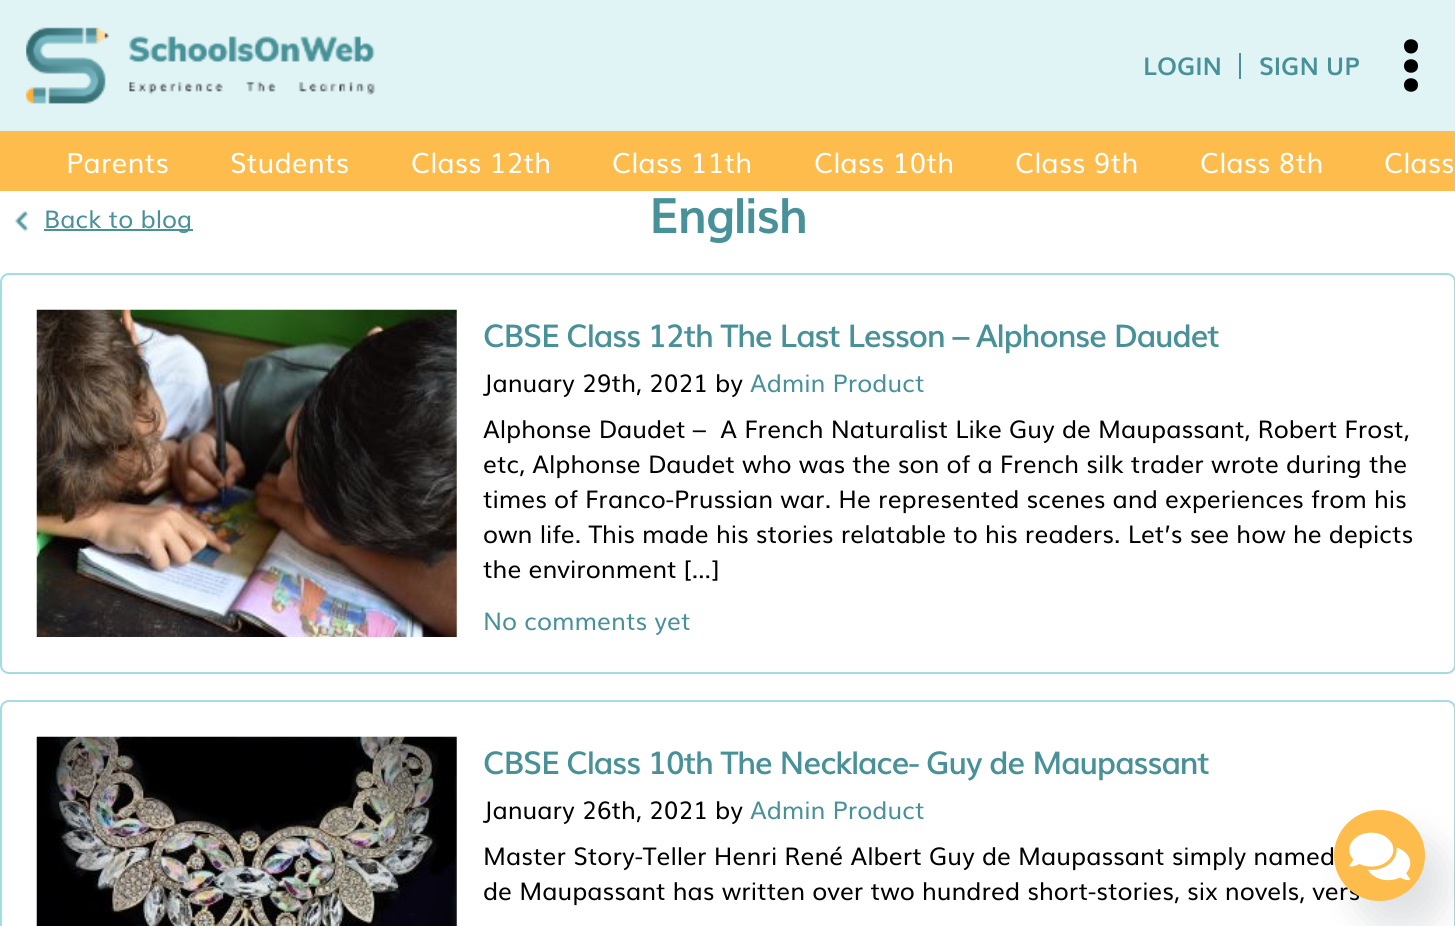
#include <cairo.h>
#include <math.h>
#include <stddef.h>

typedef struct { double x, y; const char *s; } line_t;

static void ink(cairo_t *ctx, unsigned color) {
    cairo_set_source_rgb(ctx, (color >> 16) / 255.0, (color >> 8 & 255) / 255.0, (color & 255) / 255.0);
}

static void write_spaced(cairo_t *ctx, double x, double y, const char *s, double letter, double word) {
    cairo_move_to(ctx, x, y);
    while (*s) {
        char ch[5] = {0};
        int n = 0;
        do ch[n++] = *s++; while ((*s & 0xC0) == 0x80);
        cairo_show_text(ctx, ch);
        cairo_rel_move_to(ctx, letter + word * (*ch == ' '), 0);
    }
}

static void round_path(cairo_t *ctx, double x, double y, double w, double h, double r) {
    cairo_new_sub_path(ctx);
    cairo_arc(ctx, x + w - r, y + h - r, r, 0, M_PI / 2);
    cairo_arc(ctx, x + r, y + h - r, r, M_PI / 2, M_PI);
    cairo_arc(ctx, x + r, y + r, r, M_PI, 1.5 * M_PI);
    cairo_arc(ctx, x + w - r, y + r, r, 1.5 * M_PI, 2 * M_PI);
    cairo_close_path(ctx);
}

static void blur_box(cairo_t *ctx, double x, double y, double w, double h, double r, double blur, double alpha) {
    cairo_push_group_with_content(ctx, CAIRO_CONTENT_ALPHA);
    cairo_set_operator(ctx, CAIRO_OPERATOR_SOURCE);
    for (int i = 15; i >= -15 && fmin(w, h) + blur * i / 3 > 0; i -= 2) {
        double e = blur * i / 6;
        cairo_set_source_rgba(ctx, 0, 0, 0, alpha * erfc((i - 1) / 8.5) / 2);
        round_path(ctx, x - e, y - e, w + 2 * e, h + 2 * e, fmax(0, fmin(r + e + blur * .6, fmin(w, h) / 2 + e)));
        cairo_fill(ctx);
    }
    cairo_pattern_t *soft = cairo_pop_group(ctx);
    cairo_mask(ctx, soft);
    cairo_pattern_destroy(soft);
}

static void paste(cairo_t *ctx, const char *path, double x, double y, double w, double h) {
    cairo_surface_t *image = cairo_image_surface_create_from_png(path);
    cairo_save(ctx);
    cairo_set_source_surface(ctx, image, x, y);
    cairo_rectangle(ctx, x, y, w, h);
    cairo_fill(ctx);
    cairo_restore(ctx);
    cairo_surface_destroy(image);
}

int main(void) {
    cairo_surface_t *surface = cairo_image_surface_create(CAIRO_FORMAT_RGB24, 1455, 926);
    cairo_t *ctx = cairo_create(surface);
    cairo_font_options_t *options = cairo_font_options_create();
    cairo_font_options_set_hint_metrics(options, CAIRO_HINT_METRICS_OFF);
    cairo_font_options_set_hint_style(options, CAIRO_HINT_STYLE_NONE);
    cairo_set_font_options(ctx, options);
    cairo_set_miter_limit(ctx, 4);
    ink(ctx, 0xFFFFFF);
    cairo_paint(ctx);
    ink(ctx, 0xE0F4F5);
    cairo_rectangle(ctx, 0, 0, 1455, 131);
    cairo_fill(ctx);
    paste(ctx, "media/1.png", 26, 27, 349, 77);
    ink(ctx, 0x000000);
    cairo_set_fill_rule(ctx, CAIRO_FILL_RULE_EVEN_ODD);
    cairo_new_path(ctx);
    cairo_move_to(ctx, 1404, 46);
    cairo_curve_to(ctx, 1404, 37, 1418, 37, 1418, 46);
    cairo_curve_to(ctx, 1418, 56, 1404, 56, 1404, 46);
    cairo_close_path(ctx);
    cairo_move_to(ctx, 1404, 66);
    cairo_curve_to(ctx, 1404, 57, 1418, 57, 1418, 66);
    cairo_curve_to(ctx, 1418, 75, 1404, 75, 1404, 66);
    cairo_close_path(ctx);
    cairo_move_to(ctx, 1404, 85);
    cairo_curve_to(ctx, 1404, 76, 1418, 76, 1418, 85);
    cairo_curve_to(ctx, 1418, 94, 1404, 94, 1404, 85);
    cairo_close_path(ctx);
    cairo_fill(ctx);
    cairo_select_font_face(ctx, "Muli", CAIRO_FONT_SLANT_NORMAL, CAIRO_FONT_WEIGHT_BOLD);
    cairo_set_font_size(ctx, 24.5);
    ink(ctx, 0x489198);
    cairo_move_to(ctx, 1143, 75);
    cairo_show_text(ctx, "LOGIN");
    cairo_rectangle(ctx, 1239, 53, 2, 26);
    cairo_fill(ctx);
    cairo_move_to(ctx, 1259, 75);
    cairo_show_text(ctx, "SIGN UP");
    ink(ctx, 0xFDBC4B);
    cairo_rectangle(ctx, 0, 131, 1455, 60);
    cairo_fill(ctx);
    cairo_select_font_face(ctx, "Muli", CAIRO_FONT_SLANT_NORMAL, CAIRO_FONT_WEIGHT_NORMAL);
    cairo_set_font_size(ctx, 28);
    ink(ctx, 0xFFFFFF);
    {
        static const line_t items[] = {
            {66, 173, "Parents"},
            {230, 173, "Students"},
            {411, 173, "Class 12th"},
            {612, 173, "Class 11th"},
            {814, 173, "Class 10th"},
            {1015, 173, "Class 9th"},
            {1200, 173, "Class 8th"},
            {1384, 173, "Class"},
        };
        for (size_t i = 0; i < sizeof items / sizeof *items; i++) {
            cairo_move_to(ctx, items[i].x, items[i].y);
            cairo_show_text(ctx, items[i].s);
        }
    }
    paste(ctx, "media/2.png", 15, 211, 14, 21);
    ink(ctx, 0x489198);
    cairo_rectangle(ctx, 44, 229, 149, 2);
    cairo_fill(ctx);
    cairo_set_font_size(ctx, 24.5);
    cairo_move_to(ctx, 44, 228);
    cairo_show_text(ctx, "Back to blog");
    cairo_select_font_face(ctx, "Muli", CAIRO_FONT_SLANT_NORMAL, CAIRO_FONT_WEIGHT_BOLD);
    cairo_set_font_size(ctx, 49);
    write_spaced(ctx, 649, 233, "English", -1.3, 0);
    round_path(ctx, 1, 274, 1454, 399, 8);
    ink(ctx, 0xA3DCE1);
    cairo_stroke(ctx);
    paste(ctx, "media/3.png", 36, 309, 421, 328);
    cairo_select_font_face(ctx, "Muli SemiBold", CAIRO_FONT_SLANT_NORMAL, CAIRO_FONT_WEIGHT_NORMAL);
    cairo_set_font_size(ctx, 31.5);
    ink(ctx, 0x489198);
    write_spaced(ctx, 483, 347, "CBSE Class 12th The Last Lesson – Alphonse Daudet", -1.3, 0);
    cairo_select_font_face(ctx, "Muli", CAIRO_FONT_SLANT_NORMAL, CAIRO_FONT_WEIGHT_NORMAL);
    cairo_set_font_size(ctx, 24.5);
    ink(ctx, 0x000000);
    cairo_move_to(ctx, 483, 392);
    cairo_show_text(ctx, "January 29th, 2021 by");
    ink(ctx, 0x489198);
    cairo_move_to(ctx, 750, 392);
    cairo_show_text(ctx, "Admin Product");
    ink(ctx, 0x000000);
    {
        static const line_t items[] = {
            {483, 438, "Alphonse Daudet –  A French Naturalist Like Guy de Maupassant, Robert Frost,"},
            {483, 473, "etc, Alphonse Daudet who was the son of a French silk trader wrote during the"},
            {483, 508, "times of Franco-Prussian war. He represented scenes and experiences from his"},
            {483, 543, "own life. This made his stories relatable to his readers. Let’s see how he depicts"},
            {483, 578, "the environment […]"},
        };
        for (size_t i = 0; i < sizeof items / sizeof *items; i++) {
            cairo_move_to(ctx, items[i].x, items[i].y);
            cairo_show_text(ctx, items[i].s);
        }
    }
    ink(ctx, 0x489198);
    cairo_move_to(ctx, 483, 630);
    cairo_show_text(ctx, "No comments yet");
    round_path(ctx, 1, 701, 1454, 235, 8);
    ink(ctx, 0xA3DCE1);
    cairo_stroke(ctx);
    paste(ctx, "media/4.png", 36, 736, 421, 190);
    cairo_select_font_face(ctx, "Muli SemiBold", CAIRO_FONT_SLANT_NORMAL, CAIRO_FONT_WEIGHT_NORMAL);
    cairo_set_font_size(ctx, 31.5);
    ink(ctx, 0x489198);
    write_spaced(ctx, 483, 774, "CBSE Class 10th The Necklace- Guy de Maupassant", -1.3, 0);
    cairo_select_font_face(ctx, "Muli", CAIRO_FONT_SLANT_NORMAL, CAIRO_FONT_WEIGHT_NORMAL);
    cairo_set_font_size(ctx, 24.5);
    ink(ctx, 0x000000);
    cairo_move_to(ctx, 483, 819);
    cairo_show_text(ctx, "January 26th, 2021 by");
    ink(ctx, 0x489198);
    cairo_move_to(ctx, 750, 819);
    cairo_show_text(ctx, "Admin Product");
    ink(ctx, 0x000000);
    cairo_move_to(ctx, 483, 865);
    cairo_show_text(ctx, "Master Story-Teller Henri René Albert Guy de Maupassant simply named");
    cairo_move_to(ctx, 483, 900);
    cairo_show_text(ctx, "de Maupassant has written over two hundred short-stories, six novels, vers");
    ink(ctx, 0x2E3D49);
    blur_box(ctx, 1355, 837, 91, 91, 45.5, 17.5, 0.15);
    ink(ctx, 0xFDBC4B);
    cairo_arc(ctx, 1379.5, 855.5, 45.5, 0, 2 * M_PI);
    cairo_fill(ctx);
    paste(ctx, "media/5.png", 1349, 832, 62, 49);
    cairo_surface_write_to_png(surface, "image.png");
    cairo_font_options_destroy(options);
    cairo_destroy(ctx);
    cairo_surface_destroy(surface);
    return 0;
}
